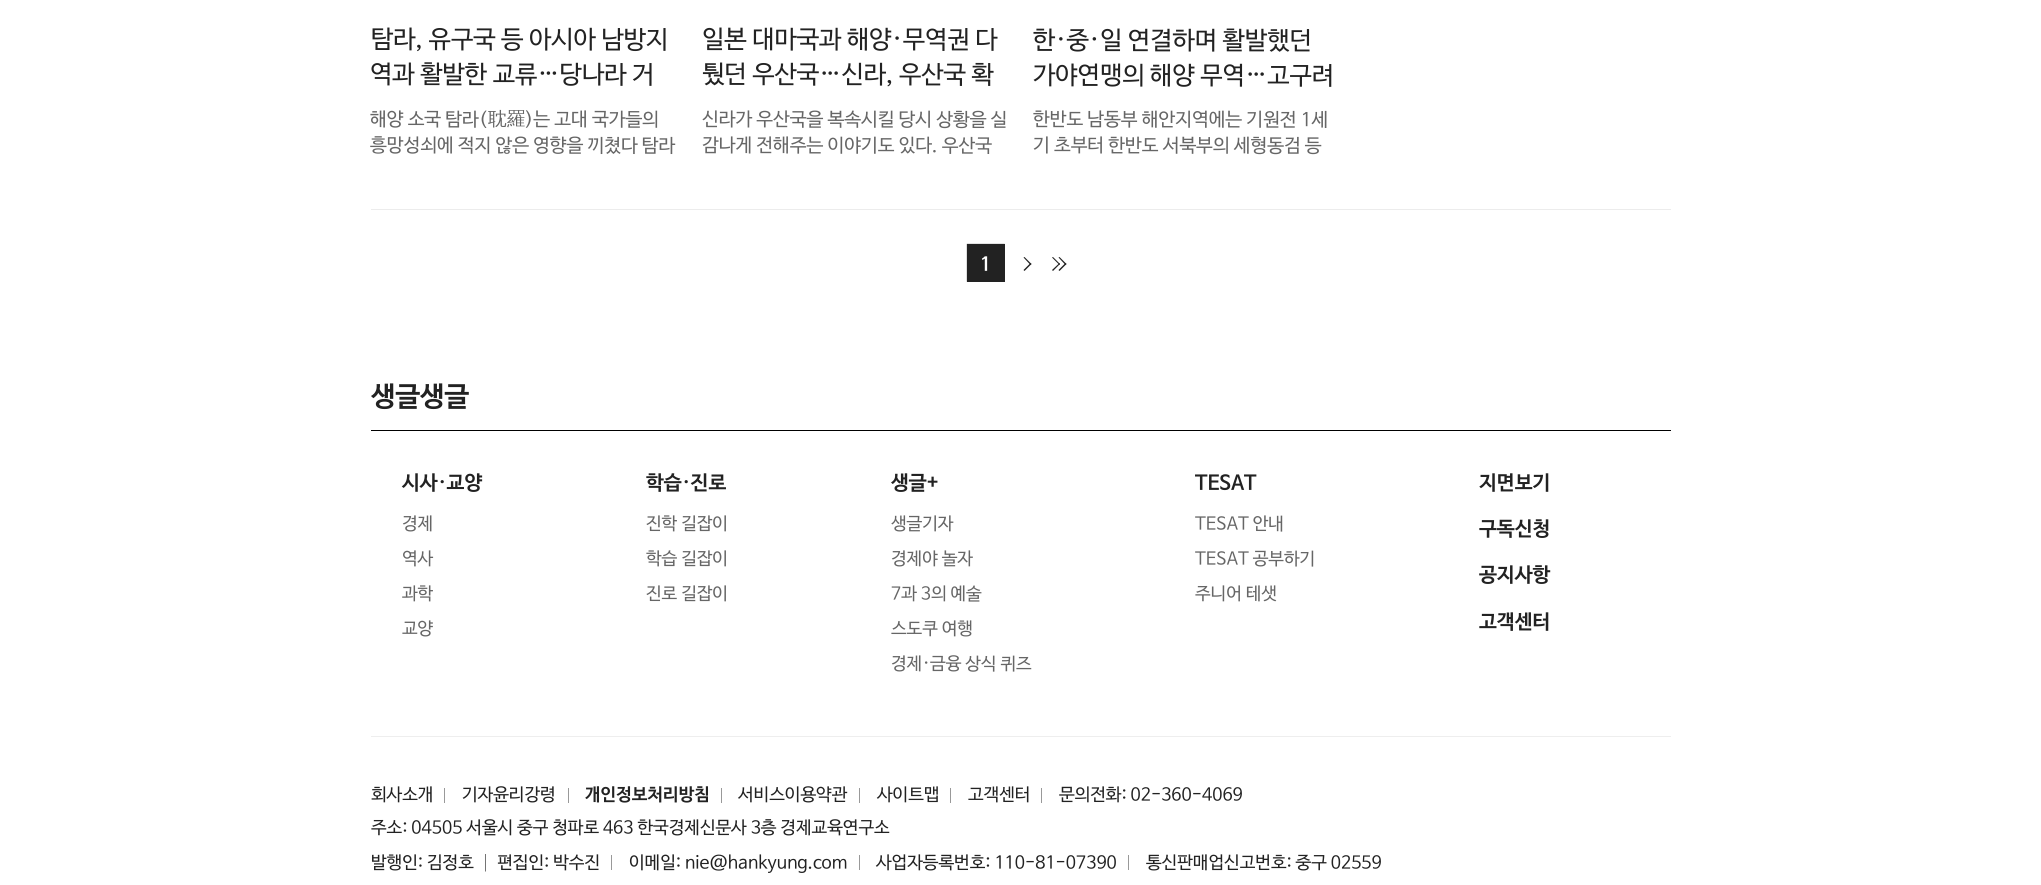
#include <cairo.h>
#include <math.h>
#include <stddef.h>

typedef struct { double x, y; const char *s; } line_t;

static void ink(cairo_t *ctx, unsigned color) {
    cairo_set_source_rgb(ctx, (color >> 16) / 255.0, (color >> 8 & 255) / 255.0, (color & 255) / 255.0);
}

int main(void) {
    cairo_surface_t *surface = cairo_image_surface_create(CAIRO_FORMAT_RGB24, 2041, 885);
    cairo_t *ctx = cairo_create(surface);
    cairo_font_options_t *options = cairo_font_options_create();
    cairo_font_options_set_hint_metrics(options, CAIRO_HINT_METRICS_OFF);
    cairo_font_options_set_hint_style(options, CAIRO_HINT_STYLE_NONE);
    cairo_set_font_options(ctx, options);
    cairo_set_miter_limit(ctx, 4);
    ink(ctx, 0xFFFFFF);
    cairo_paint(ctx);
    ink(ctx, 0xECECEC);
    cairo_rectangle(ctx, 371, 209, 1300, 1);
    cairo_fill(ctx);
    cairo_select_font_face(ctx, "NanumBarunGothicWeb", CAIRO_FONT_SLANT_NORMAL, CAIRO_FONT_WEIGHT_NORMAL);
    cairo_set_font_size(ctx, 25);
    ink(ctx, 0x222222);
    cairo_save(ctx);
    cairo_translate(ctx, 371, 47);
    cairo_rotate(ctx, 0.1 * M_PI / 180);
    cairo_move_to(ctx, 0, 0);
    cairo_show_text(ctx, "탐라, 유구국 등 아시아 남방지");
    cairo_restore(ctx);
    cairo_save(ctx);
    cairo_translate(ctx, 370, 82);
    cairo_rotate(ctx, 0.1 * M_PI / 180);
    cairo_move_to(ctx, 0, 0);
    cairo_show_text(ctx, "역과 활발한 교류…당나라 거");
    cairo_restore(ctx);
    cairo_set_font_size(ctx, 18.75);
    ink(ctx, 0x666666);
    cairo_save(ctx);
    cairo_translate(ctx, 370, 125);
    cairo_rotate(ctx, 0.1 * M_PI / 180);
    cairo_move_to(ctx, 0, 0);
    cairo_show_text(ctx, "해양 소국 탐라(");
    cairo_restore(ctx);
    cairo_select_font_face(ctx, "WenQuanYi Zen Hei Medium", CAIRO_FONT_SLANT_NORMAL, CAIRO_FONT_WEIGHT_NORMAL);
    cairo_save(ctx);
    cairo_translate(ctx, 488, 125);
    cairo_rotate(ctx, 0.1 * M_PI / 180);
    cairo_move_to(ctx, 0, 0);
    cairo_show_text(ctx, "耽羅");
    cairo_restore(ctx);
    cairo_select_font_face(ctx, "NanumBarunGothicWeb", CAIRO_FONT_SLANT_NORMAL, CAIRO_FONT_WEIGHT_NORMAL);
    cairo_save(ctx);
    cairo_translate(ctx, 525, 125);
    cairo_rotate(ctx, 0.1 * M_PI / 180);
    cairo_move_to(ctx, 0, 0);
    cairo_show_text(ctx, ")는 고대 국가들의");
    cairo_restore(ctx);
    cairo_save(ctx);
    cairo_translate(ctx, 370, 151);
    cairo_rotate(ctx, 0.1 * M_PI / 180);
    cairo_move_to(ctx, 0, 0);
    cairo_show_text(ctx, "흥망성쇠에 적지 않은 영향을 끼쳤다 탐라");
    cairo_restore(ctx);
    cairo_set_font_size(ctx, 25);
    ink(ctx, 0x222222);
    cairo_save(ctx);
    cairo_translate(ctx, 702, 47);
    cairo_rotate(ctx, 0.1 * M_PI / 180);
    cairo_move_to(ctx, 0, 0);
    cairo_show_text(ctx, "일본 대마국과 해양·무역권 다");
    cairo_restore(ctx);
    cairo_save(ctx);
    cairo_translate(ctx, 702, 82);
    cairo_rotate(ctx, 0.1 * M_PI / 180);
    cairo_move_to(ctx, 0, 0);
    cairo_show_text(ctx, "퉜던 우산국…신라, 우산국 확");
    cairo_restore(ctx);
    cairo_set_font_size(ctx, 18.75);
    ink(ctx, 0x666666);
    cairo_save(ctx);
    cairo_translate(ctx, 702, 125);
    cairo_rotate(ctx, 0.1 * M_PI / 180);
    cairo_move_to(ctx, 0, 0);
    cairo_show_text(ctx, "신라가 우산국을 복속시킬 당시 상황을 실");
    cairo_restore(ctx);
    cairo_save(ctx);
    cairo_translate(ctx, 702, 151);
    cairo_rotate(ctx, 0.1 * M_PI / 180);
    cairo_move_to(ctx, 0, 0);
    cairo_show_text(ctx, "감나게 전해주는 이야기도 있다. 우산국");
    cairo_restore(ctx);
    cairo_set_font_size(ctx, 25);
    ink(ctx, 0x222222);
    cairo_save(ctx);
    cairo_translate(ctx, 1033, 48);
    cairo_rotate(ctx, 0.1 * M_PI / 180);
    cairo_move_to(ctx, 0, 0);
    cairo_show_text(ctx, "한·중·일 연결하며 활발했던");
    cairo_restore(ctx);
    cairo_save(ctx);
    cairo_translate(ctx, 1033, 83);
    cairo_rotate(ctx, 0.1 * M_PI / 180);
    cairo_move_to(ctx, 0, 0);
    cairo_show_text(ctx, "가야연맹의 해양 무역…고구려");
    cairo_restore(ctx);
    cairo_set_font_size(ctx, 18.75);
    ink(ctx, 0x666666);
    cairo_save(ctx);
    cairo_translate(ctx, 1033, 125);
    cairo_rotate(ctx, 0.1 * M_PI / 180);
    cairo_move_to(ctx, 0, 0);
    cairo_show_text(ctx, "한반도 남동부 해안지역에는 기원전 1세");
    cairo_restore(ctx);
    cairo_save(ctx);
    cairo_translate(ctx, 1033, 151);
    cairo_rotate(ctx, 0.1 * M_PI / 180);
    cairo_move_to(ctx, 0, 0);
    cairo_show_text(ctx, "기 초부터 한반도 서북부의 세형동검 등");
    cairo_restore(ctx);
    ink(ctx, 0x222222);
    cairo_rectangle(ctx, 967, 244, 38, 38);
    cairo_fill(ctx);
    cairo_new_path(ctx);
    cairo_move_to(ctx, 967.5, 244.5);
    cairo_line_to(ctx, 1004, 244.5);
    cairo_line_to(ctx, 1003.5, 281);
    cairo_line_to(ctx, 967.5, 281);
    cairo_close_path(ctx);
    cairo_set_line_width(ctx, 1.3);
    cairo_stroke(ctx);
    cairo_select_font_face(ctx, "NanumBarunGothicWeb", CAIRO_FONT_SLANT_NORMAL, CAIRO_FONT_WEIGHT_BOLD);
    ink(ctx, 0xFFFFFF);
    cairo_move_to(ctx, 980, 270);
    cairo_show_text(ctx, "1");
    ink(ctx, 0x222222);
    cairo_new_path(ctx);
    cairo_move_to(ctx, 1024.5, 257);
    cairo_line_to(ctx, 1031.5, 264);
    cairo_line_to(ctx, 1030.5, 265);
    cairo_line_to(ctx, 1023.5, 257.5);
    cairo_close_path(ctx);
    cairo_fill(ctx);
    cairo_new_path(ctx);
    cairo_move_to(ctx, 1030.5, 263);
    cairo_line_to(ctx, 1031.5, 264);
    cairo_line_to(ctx, 1024.5, 271);
    cairo_line_to(ctx, 1023.5, 270);
    cairo_close_path(ctx);
    cairo_move_to(ctx, 1059.5, 257);
    cairo_line_to(ctx, 1066.5, 264);
    cairo_line_to(ctx, 1065.5, 265);
    cairo_line_to(ctx, 1058.5, 257.5);
    cairo_close_path(ctx);
    cairo_fill(ctx);
    cairo_new_path(ctx);
    cairo_move_to(ctx, 1065.5, 263);
    cairo_line_to(ctx, 1066.5, 264);
    cairo_line_to(ctx, 1059.5, 271);
    cairo_line_to(ctx, 1058.5, 270);
    cairo_close_path(ctx);
    cairo_fill(ctx);
    cairo_new_path(ctx);
    cairo_move_to(ctx, 1053, 257);
    cairo_line_to(ctx, 1060, 264);
    cairo_line_to(ctx, 1059.5, 265);
    cairo_line_to(ctx, 1052, 257.5);
    cairo_close_path(ctx);
    cairo_fill(ctx);
    cairo_new_path(ctx);
    cairo_move_to(ctx, 1059.5, 263);
    cairo_line_to(ctx, 1060, 264);
    cairo_line_to(ctx, 1053, 271);
    cairo_line_to(ctx, 1052, 270);
    cairo_close_path(ctx);
    cairo_fill(ctx);
    cairo_set_font_size(ctx, 27.5);
    cairo_move_to(ctx, 371, 405);
    cairo_show_text(ctx, "생글생글");
    ink(ctx, 0x000000);
    cairo_rectangle(ctx, 371, 430, 1300, 1);
    cairo_fill(ctx);
    ink(ctx, 0xEEEEEE);
    cairo_rectangle(ctx, 371, 736, 1300, 1);
    cairo_fill(ctx);
    cairo_set_font_size(ctx, 20);
    ink(ctx, 0x222222);
    cairo_move_to(ctx, 402, 489);
    cairo_show_text(ctx, "시사·교양");
    cairo_select_font_face(ctx, "NanumBarunGothicWeb", CAIRO_FONT_SLANT_NORMAL, CAIRO_FONT_WEIGHT_NORMAL);
    cairo_set_font_size(ctx, 17.5);
    ink(ctx, 0x666666);
    cairo_save(ctx);
    cairo_translate(ctx, 402, 529);
    cairo_rotate(ctx, 0.1 * M_PI / 180);
    cairo_move_to(ctx, 0, 0);
    cairo_show_text(ctx, "경제");
    cairo_restore(ctx);
    cairo_save(ctx);
    cairo_translate(ctx, 402, 564);
    cairo_rotate(ctx, 0.1 * M_PI / 180);
    cairo_move_to(ctx, 0, 0);
    cairo_show_text(ctx, "역사");
    cairo_restore(ctx);
    cairo_save(ctx);
    cairo_translate(ctx, 402, 599);
    cairo_rotate(ctx, 0.1 * M_PI / 180);
    cairo_move_to(ctx, 0, 0);
    cairo_show_text(ctx, "과학");
    cairo_restore(ctx);
    cairo_save(ctx);
    cairo_translate(ctx, 402, 634);
    cairo_rotate(ctx, 0.1 * M_PI / 180);
    cairo_move_to(ctx, 0, 0);
    cairo_show_text(ctx, "교양");
    cairo_restore(ctx);
    cairo_select_font_face(ctx, "NanumBarunGothicWeb", CAIRO_FONT_SLANT_NORMAL, CAIRO_FONT_WEIGHT_BOLD);
    cairo_set_font_size(ctx, 20);
    ink(ctx, 0x222222);
    cairo_move_to(ctx, 646, 489);
    cairo_show_text(ctx, "학습·진로");
    cairo_select_font_face(ctx, "NanumBarunGothicWeb", CAIRO_FONT_SLANT_NORMAL, CAIRO_FONT_WEIGHT_NORMAL);
    cairo_set_font_size(ctx, 17.5);
    ink(ctx, 0x666666);
    cairo_save(ctx);
    cairo_translate(ctx, 646, 529);
    cairo_rotate(ctx, 0.1 * M_PI / 180);
    cairo_move_to(ctx, 0, 0);
    cairo_show_text(ctx, "진학 길잡이");
    cairo_restore(ctx);
    cairo_save(ctx);
    cairo_translate(ctx, 646, 564);
    cairo_rotate(ctx, 0.1 * M_PI / 180);
    cairo_move_to(ctx, 0, 0);
    cairo_show_text(ctx, "학습 길잡이");
    cairo_restore(ctx);
    cairo_save(ctx);
    cairo_translate(ctx, 646, 599);
    cairo_rotate(ctx, 0.1 * M_PI / 180);
    cairo_move_to(ctx, 0, 0);
    cairo_show_text(ctx, "진로 길잡이");
    cairo_restore(ctx);
    cairo_select_font_face(ctx, "NanumBarunGothicWeb", CAIRO_FONT_SLANT_NORMAL, CAIRO_FONT_WEIGHT_BOLD);
    cairo_set_font_size(ctx, 20);
    ink(ctx, 0x222222);
    cairo_move_to(ctx, 891, 489);
    cairo_show_text(ctx, "생글+");
    cairo_select_font_face(ctx, "NanumBarunGothicWeb", CAIRO_FONT_SLANT_NORMAL, CAIRO_FONT_WEIGHT_NORMAL);
    cairo_set_font_size(ctx, 17.5);
    ink(ctx, 0x666666);
    cairo_save(ctx);
    cairo_translate(ctx, 891, 529);
    cairo_rotate(ctx, 0.1 * M_PI / 180);
    cairo_move_to(ctx, 0, 0);
    cairo_show_text(ctx, "생글기자");
    cairo_restore(ctx);
    cairo_save(ctx);
    cairo_translate(ctx, 891, 564);
    cairo_rotate(ctx, 0.1 * M_PI / 180);
    cairo_move_to(ctx, 0, 0);
    cairo_show_text(ctx, "경제야 놀자");
    cairo_restore(ctx);
    cairo_save(ctx);
    cairo_translate(ctx, 891, 599);
    cairo_rotate(ctx, 0.1 * M_PI / 180);
    cairo_move_to(ctx, 0, 0);
    cairo_show_text(ctx, "7과 3의 예술");
    cairo_restore(ctx);
    cairo_save(ctx);
    cairo_translate(ctx, 891, 634);
    cairo_rotate(ctx, 0.1 * M_PI / 180);
    cairo_move_to(ctx, 0, 0);
    cairo_show_text(ctx, "스도쿠 여행");
    cairo_restore(ctx);
    cairo_save(ctx);
    cairo_translate(ctx, 891, 669);
    cairo_rotate(ctx, 0.1 * M_PI / 180);
    cairo_move_to(ctx, 0, 0);
    cairo_show_text(ctx, "경제·금융 상식 퀴즈");
    cairo_restore(ctx);
    cairo_select_font_face(ctx, "NanumBarunGothicWeb", CAIRO_FONT_SLANT_NORMAL, CAIRO_FONT_WEIGHT_BOLD);
    cairo_set_font_size(ctx, 20);
    ink(ctx, 0x222222);
    cairo_move_to(ctx, 1195, 489);
    cairo_show_text(ctx, "TESAT");
    cairo_select_font_face(ctx, "NanumBarunGothicWeb", CAIRO_FONT_SLANT_NORMAL, CAIRO_FONT_WEIGHT_NORMAL);
    cairo_set_font_size(ctx, 17.5);
    ink(ctx, 0x666666);
    cairo_save(ctx);
    cairo_translate(ctx, 1195, 529);
    cairo_rotate(ctx, 0.1 * M_PI / 180);
    cairo_move_to(ctx, 0, 0);
    cairo_show_text(ctx, "TESAT 안내");
    cairo_restore(ctx);
    cairo_save(ctx);
    cairo_translate(ctx, 1195, 564);
    cairo_rotate(ctx, 0.1 * M_PI / 180);
    cairo_move_to(ctx, 0, 0);
    cairo_show_text(ctx, "TESAT 공부하기");
    cairo_restore(ctx);
    cairo_save(ctx);
    cairo_translate(ctx, 1195, 599);
    cairo_rotate(ctx, 0.1 * M_PI / 180);
    cairo_move_to(ctx, 0, 0);
    cairo_show_text(ctx, "주니어 테샛");
    cairo_restore(ctx);
    cairo_select_font_face(ctx, "NanumBarunGothicWeb", CAIRO_FONT_SLANT_NORMAL, CAIRO_FONT_WEIGHT_BOLD);
    cairo_set_font_size(ctx, 20);
    ink(ctx, 0x222222);
    cairo_move_to(ctx, 1479, 489);
    cairo_show_text(ctx, "지면보기");
    cairo_save(ctx);
    cairo_translate(ctx, 1479, 535);
    cairo_rotate(ctx, 0.1 * M_PI / 180);
    cairo_move_to(ctx, 0, 0);
    cairo_show_text(ctx, "구독신청");
    cairo_restore(ctx);
    cairo_save(ctx);
    cairo_translate(ctx, 1479, 581);
    cairo_rotate(ctx, 0.1 * M_PI / 180);
    cairo_move_to(ctx, 0, 0);
    cairo_show_text(ctx, "공지사항");
    cairo_restore(ctx);
    cairo_save(ctx);
    cairo_translate(ctx, 1479, 628);
    cairo_rotate(ctx, 0.1 * M_PI / 180);
    cairo_move_to(ctx, 0, 0);
    cairo_show_text(ctx, "고객센터");
    cairo_restore(ctx);
    cairo_select_font_face(ctx, "NanumBarunGothicWeb", CAIRO_FONT_SLANT_NORMAL, CAIRO_FONT_WEIGHT_NORMAL);
    cairo_set_font_size(ctx, 17.5);
    cairo_move_to(ctx, 371, 800);
    cairo_show_text(ctx, "회사소개");
    ink(ctx, 0x999999);
    cairo_rectangle(ctx, 444, 788, 1, 15);
    cairo_fill(ctx);
    ink(ctx, 0x222222);
    cairo_move_to(ctx, 462, 800);
    cairo_show_text(ctx, "기자윤리강령");
    ink(ctx, 0x999999);
    cairo_rectangle(ctx, 568, 788, 1, 15);
    cairo_fill(ctx);
    cairo_select_font_face(ctx, "NanumBarunGothicWeb", CAIRO_FONT_SLANT_NORMAL, CAIRO_FONT_WEIGHT_BOLD);
    ink(ctx, 0x222222);
    cairo_move_to(ctx, 585, 800);
    cairo_show_text(ctx, "개인정보처리방침");
    ink(ctx, 0x999999);
    cairo_rectangle(ctx, 721, 788, 1, 15);
    cairo_fill(ctx);
    cairo_select_font_face(ctx, "NanumBarunGothicWeb", CAIRO_FONT_SLANT_NORMAL, CAIRO_FONT_WEIGHT_NORMAL);
    ink(ctx, 0x222222);
    cairo_move_to(ctx, 738, 800);
    cairo_show_text(ctx, "서비스이용약관");
    ink(ctx, 0x999999);
    cairo_rectangle(ctx, 859, 788, 1, 15);
    cairo_fill(ctx);
    ink(ctx, 0x222222);
    cairo_move_to(ctx, 877, 800);
    cairo_show_text(ctx, "사이트맵");
    ink(ctx, 0x999999);
    cairo_rectangle(ctx, 950, 788, 1, 15);
    cairo_fill(ctx);
    ink(ctx, 0x222222);
    cairo_move_to(ctx, 968, 800);
    cairo_show_text(ctx, "고객센터");
    ink(ctx, 0x999999);
    cairo_rectangle(ctx, 1041, 788, 1, 15);
    cairo_fill(ctx);
    ink(ctx, 0x222222);
    {
        static const line_t items[] = {
            {1059, 800, "문의전화: 02-360-4069"},
            {371, 833, "주소: 04505 서울시 중구 청파로 463 한국경제신문사 3층 경제교육연구소"},
            {371, 868, "발행인: 김정호 │ 편집인: 박수진"},
        };
        for (size_t i = 0; i < sizeof items / sizeof *items; i++) {
            cairo_move_to(ctx, items[i].x, items[i].y);
            cairo_show_text(ctx, items[i].s);
        }
    }
    ink(ctx, 0x999999);
    cairo_rectangle(ctx, 611, 855, 1, 15);
    cairo_fill(ctx);
    ink(ctx, 0x222222);
    cairo_move_to(ctx, 629, 868);
    cairo_show_text(ctx, "이메일: nie@hankyung.com");
    ink(ctx, 0x999999);
    cairo_rectangle(ctx, 859, 855, 1, 15);
    cairo_fill(ctx);
    ink(ctx, 0x222222);
    cairo_move_to(ctx, 876, 868);
    cairo_show_text(ctx, "사업자등록번호: 110-81-07390");
    ink(ctx, 0x999999);
    cairo_rectangle(ctx, 1128, 855, 1, 15);
    cairo_fill(ctx);
    ink(ctx, 0x222222);
    cairo_move_to(ctx, 1146, 868);
    cairo_show_text(ctx, "통신판매업신고번호: 중구 02559");
    cairo_surface_write_to_png(surface, "image.png");
    cairo_font_options_destroy(options);
    cairo_destroy(ctx);
    cairo_surface_destroy(surface);
    return 0;
}
